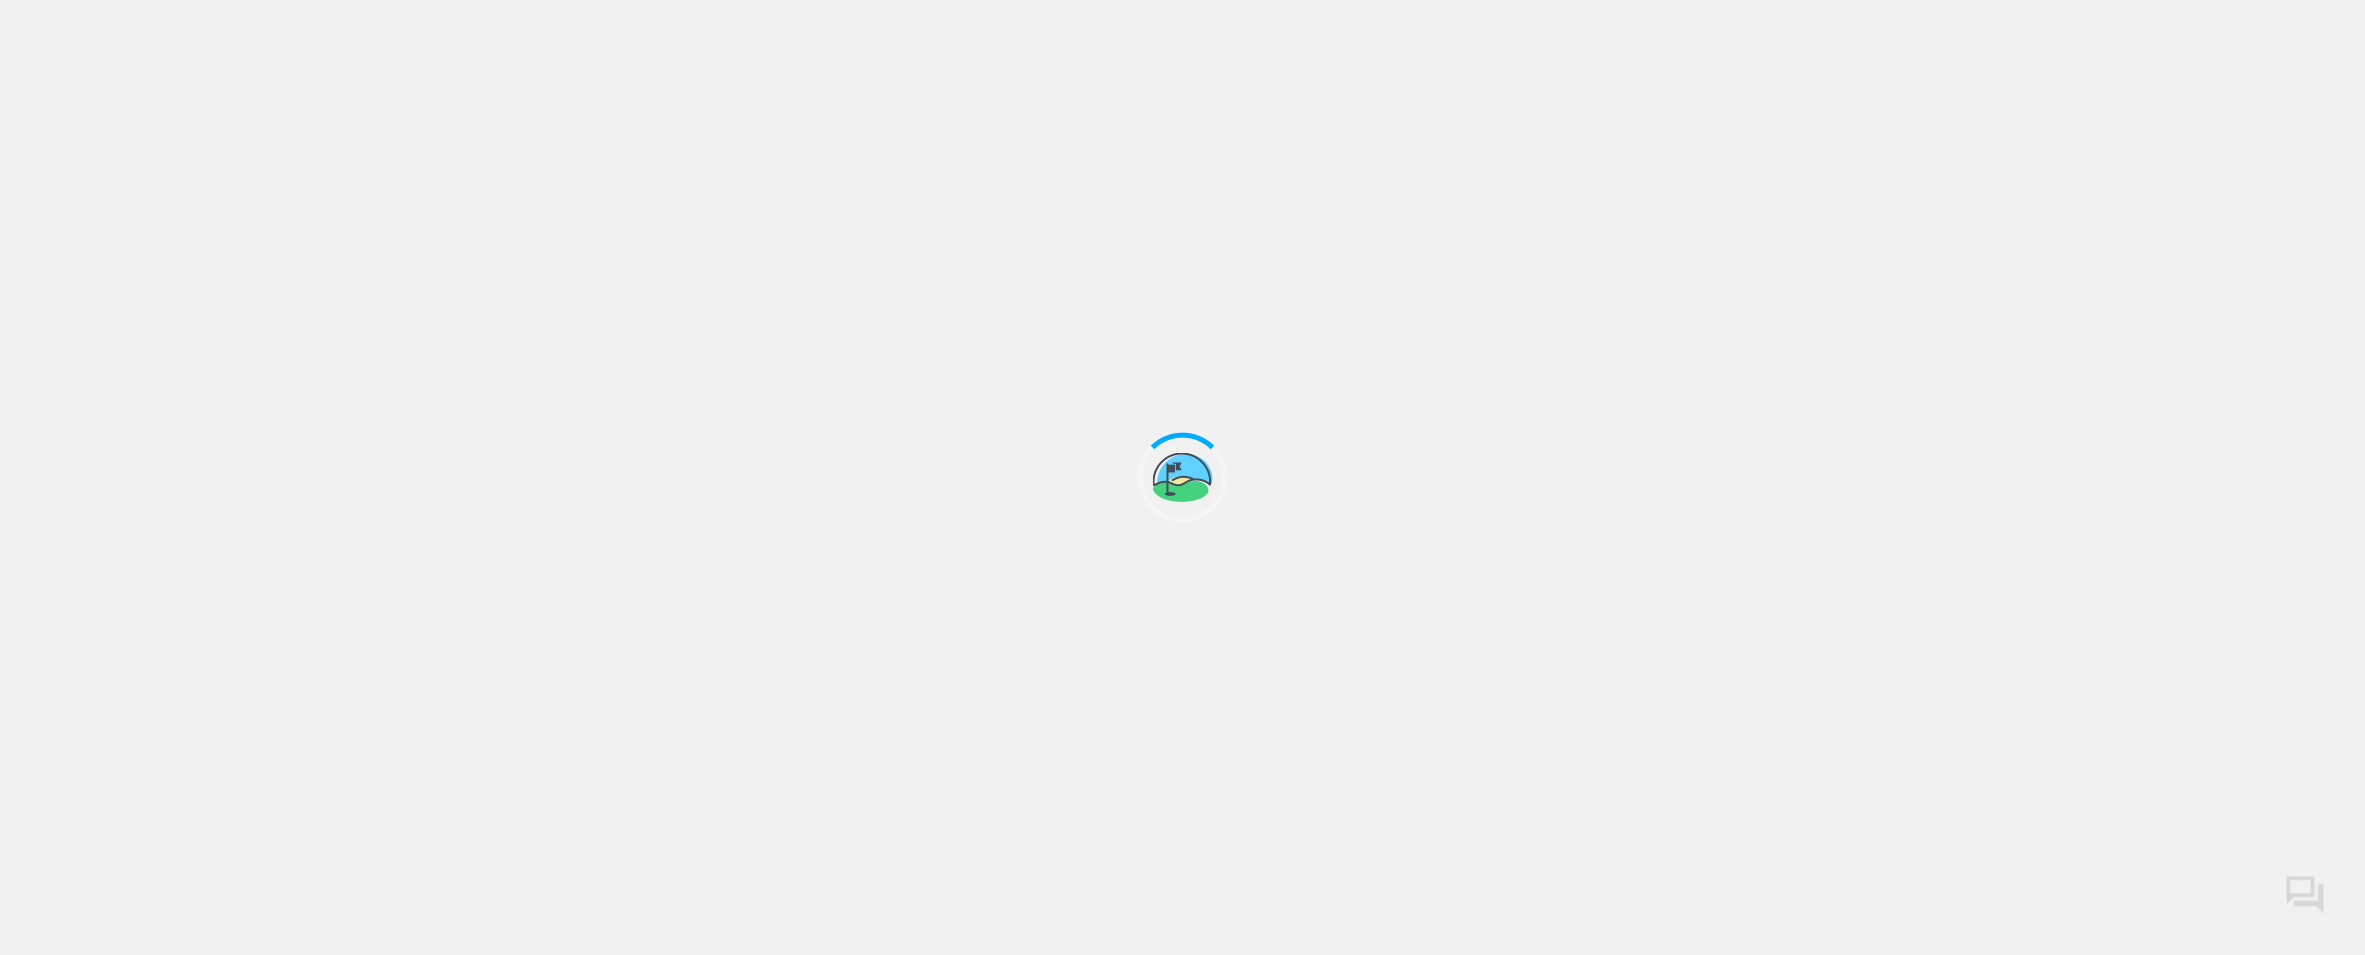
#include <cairo.h>
#include <math.h>
#include <stddef.h>


static void ink(cairo_t *ctx, unsigned color) {
    cairo_set_source_rgb(ctx, (color >> 16) / 255.0, (color >> 8 & 255) / 255.0, (color & 255) / 255.0);
}

static void paste(cairo_t *ctx, const char *path, double x, double y, double w, double h) {
    cairo_surface_t *image = cairo_image_surface_create_from_png(path);
    cairo_save(ctx);
    cairo_set_source_surface(ctx, image, x, y);
    cairo_rectangle(ctx, x, y, w, h);
    cairo_fill(ctx);
    cairo_restore(ctx);
    cairo_surface_destroy(image);
}

int main(void) {
    cairo_surface_t *surface = cairo_image_surface_create(CAIRO_FORMAT_RGB24, 2365, 955);
    cairo_t *ctx = cairo_create(surface);
    cairo_font_options_t *options = cairo_font_options_create();
    cairo_font_options_set_hint_metrics(options, CAIRO_HINT_METRICS_OFF);
    cairo_font_options_set_hint_style(options, CAIRO_HINT_STYLE_NONE);
    cairo_set_font_options(ctx, options);
    cairo_set_miter_limit(ctx, 4);
    ink(ctx, 0xF1F1F1);
    cairo_paint(ctx);
    cairo_new_path(ctx);
    cairo_move_to(ctx, 1152.5, 447.5);
    cairo_curve_to(ctx, 1169, 431, 1196, 431, 1212.5, 447.5);
    ink(ctx, 0x00AAFF);
    cairo_set_line_width(ctx, 5);
    cairo_stroke(ctx);
    cairo_new_path(ctx);
    cairo_move_to(ctx, 1212.5, 447.5);
    cairo_curve_to(ctx, 1222.5, 457.5, 1227, 472, 1224, 486);
    cairo_curve_to(ctx, 1222.5, 494, 1218.5, 501.5, 1212.5, 507.5);
    cairo_curve_to(ctx, 1186, 534, 1140, 515, 1140, 477.5);
    cairo_curve_to(ctx, 1140, 466.5, 1144.5, 455.5, 1152.5, 447.5);
    cairo_set_source_rgba(ctx, 1, 1, 1, 0.3);
    cairo_stroke(ctx);
    paste(ctx, "media/1.png", 1153, 453, 60, 49);
    paste(ctx, "media/2.png", 2286, 876, 38, 38);
    cairo_surface_write_to_png(surface, "image.png");
    cairo_font_options_destroy(options);
    cairo_destroy(ctx);
    cairo_surface_destroy(surface);
    return 0;
}
